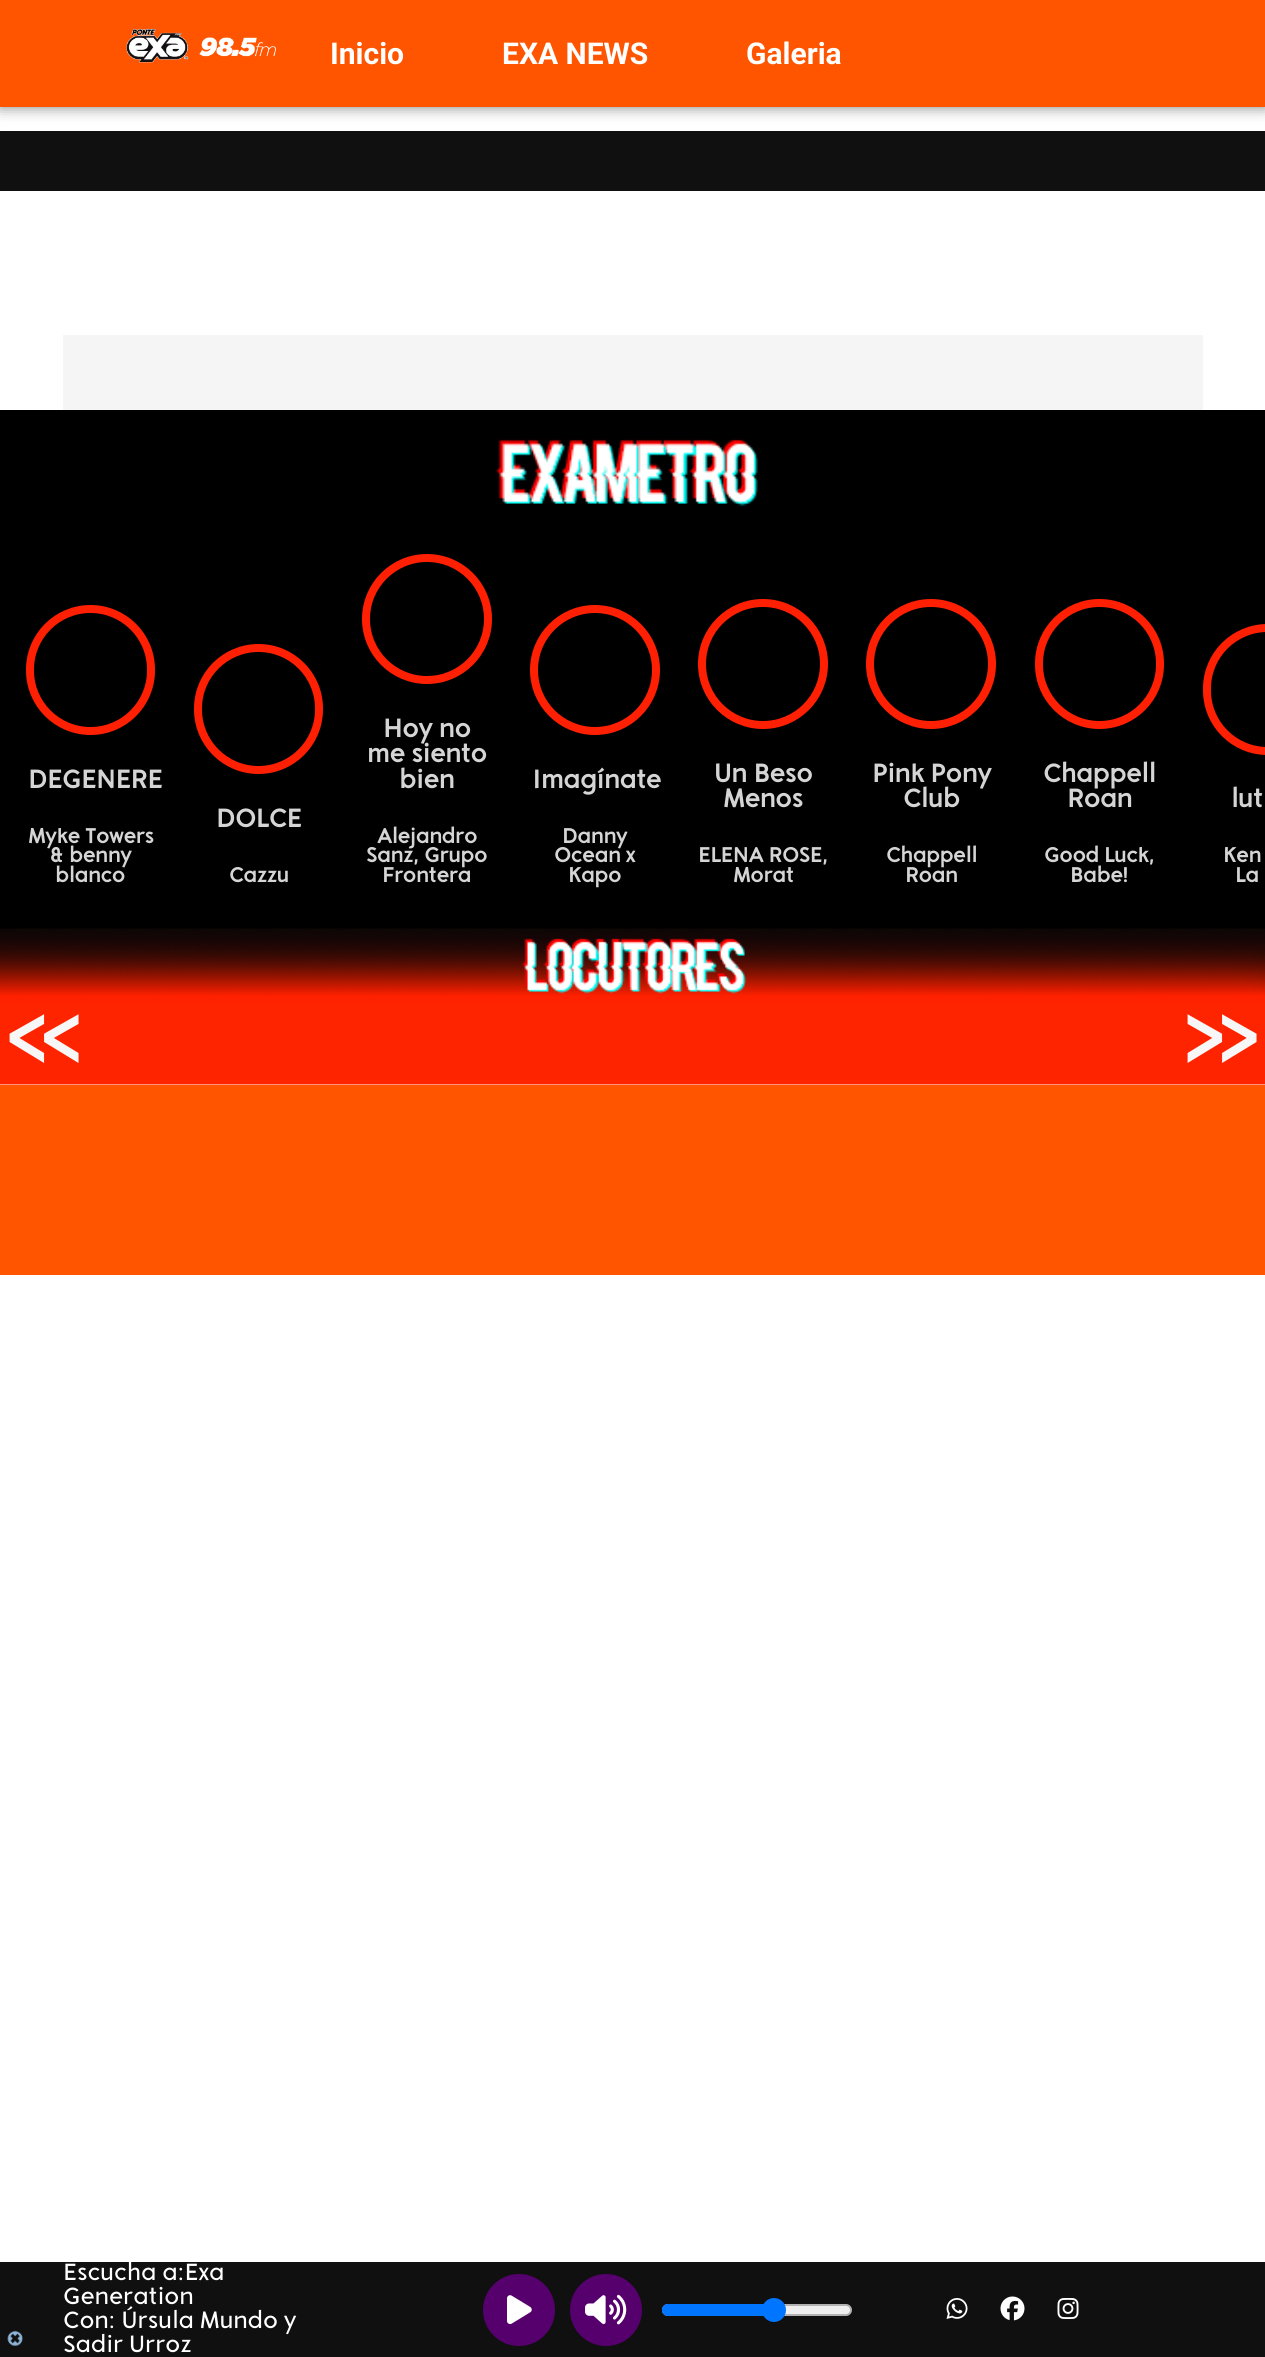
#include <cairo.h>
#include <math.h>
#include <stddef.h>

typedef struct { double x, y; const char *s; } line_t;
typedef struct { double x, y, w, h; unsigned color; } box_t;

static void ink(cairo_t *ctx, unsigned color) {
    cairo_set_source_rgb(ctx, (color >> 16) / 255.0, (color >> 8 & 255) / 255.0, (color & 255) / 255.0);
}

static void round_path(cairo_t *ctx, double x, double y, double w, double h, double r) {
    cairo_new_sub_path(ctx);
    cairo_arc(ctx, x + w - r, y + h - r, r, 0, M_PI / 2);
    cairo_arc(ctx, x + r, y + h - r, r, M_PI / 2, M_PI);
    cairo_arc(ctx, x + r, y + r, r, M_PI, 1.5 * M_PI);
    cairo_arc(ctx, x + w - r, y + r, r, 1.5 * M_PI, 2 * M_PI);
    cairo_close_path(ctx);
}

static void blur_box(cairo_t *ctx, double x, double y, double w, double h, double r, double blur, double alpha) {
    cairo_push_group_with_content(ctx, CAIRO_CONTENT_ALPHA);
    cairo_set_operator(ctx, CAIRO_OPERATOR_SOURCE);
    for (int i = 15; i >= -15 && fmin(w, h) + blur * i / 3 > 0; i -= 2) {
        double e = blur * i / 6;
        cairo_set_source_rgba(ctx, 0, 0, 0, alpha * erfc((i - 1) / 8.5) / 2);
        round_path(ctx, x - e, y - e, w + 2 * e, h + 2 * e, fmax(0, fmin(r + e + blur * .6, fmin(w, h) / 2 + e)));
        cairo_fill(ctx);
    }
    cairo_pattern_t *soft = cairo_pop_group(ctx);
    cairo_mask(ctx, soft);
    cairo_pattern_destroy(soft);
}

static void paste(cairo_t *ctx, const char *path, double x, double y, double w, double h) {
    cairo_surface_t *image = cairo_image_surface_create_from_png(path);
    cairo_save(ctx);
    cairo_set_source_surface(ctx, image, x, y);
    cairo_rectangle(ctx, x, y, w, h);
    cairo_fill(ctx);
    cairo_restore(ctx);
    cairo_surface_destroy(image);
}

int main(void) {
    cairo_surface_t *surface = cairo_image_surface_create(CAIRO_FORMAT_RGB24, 1265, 2357);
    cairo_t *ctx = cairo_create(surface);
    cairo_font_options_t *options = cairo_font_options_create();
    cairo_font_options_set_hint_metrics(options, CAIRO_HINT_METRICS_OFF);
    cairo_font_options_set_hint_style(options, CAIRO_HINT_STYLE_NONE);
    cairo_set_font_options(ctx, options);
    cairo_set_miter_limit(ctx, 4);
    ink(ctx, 0xFFFFFF);
    cairo_paint(ctx);
    ink(ctx, 0x000000);
    blur_box(ctx, 0, 0, 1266, 107, 0, 7.5, 0.5);
    ink(ctx, 0xFF5400);
    cairo_rectangle(ctx, 0, 0, 1265, 107);
    cairo_fill(ctx);
    paste(ctx, "media/1.png", 126, 28, 150, 35);
    cairo_select_font_face(ctx, "Roboto", CAIRO_FONT_SLANT_NORMAL, CAIRO_FONT_WEIGHT_BOLD);
    cairo_set_font_size(ctx, 30);
    ink(ctx, 0xFFFFFF);
    {
        static const line_t items[] = {
            {330, 64, "Inicio"},
            {502, 64, "EXA NEWS"},
            {746, 64, "Galeria"},
        };
        for (size_t i = 0; i < sizeof items / sizeof *items; i++) {
            cairo_move_to(ctx, items[i].x, items[i].y);
            cairo_show_text(ctx, items[i].s);
        }
    }
    {
        static const box_t items[] = {
            {0, 131, 1265, 60, 0x101010},
            {63, 335, 1140, 75, 0xF5F5F5},
            {0, 410, 1265, 519, 0x000000},
        };
        for (size_t i = 0; i < sizeof items / sizeof *items; i++) {
            ink(ctx, items[i].color);
            cairo_rectangle(ctx, items[i].x, items[i].y, items[i].w, items[i].h);
            cairo_fill(ctx);
        }
    }
    paste(ctx, "media/2.png", 495, 439, 263, 67);
    round_path(ctx, 30, 609, 121, 122, 60.5);
    ink(ctx, 0xFF1F02);
    cairo_set_line_width(ctx, 8);
    cairo_stroke(ctx);
    cairo_select_font_face(ctx, "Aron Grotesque", CAIRO_FONT_SLANT_NORMAL, CAIRO_FONT_WEIGHT_BOLD);
    cairo_set_font_size(ctx, 26);
    ink(ctx, 0xD5D5D5);
    cairo_move_to(ctx, 28, 788);
    cairo_show_text(ctx, "DEGENERE");
    cairo_set_font_size(ctx, 21);
    {
        static const line_t items[] = {
            {28, 843, "Myke Towers"},
            {49, 862, "& benny"},
            {55, 882, "blanco"},
        };
        for (size_t i = 0; i < sizeof items / sizeof *items; i++) {
            cairo_move_to(ctx, items[i].x, items[i].y);
            cairo_show_text(ctx, items[i].s);
        }
    }
    round_path(ctx, 198, 648, 121, 122, 60.5);
    ink(ctx, 0xFF1F02);
    cairo_stroke(ctx);
    cairo_set_font_size(ctx, 26);
    ink(ctx, 0xD5D5D5);
    cairo_move_to(ctx, 216, 827);
    cairo_show_text(ctx, "DOLCE");
    cairo_set_font_size(ctx, 21);
    cairo_move_to(ctx, 229, 882);
    cairo_show_text(ctx, "Cazzu");
    cairo_new_path(ctx);
    cairo_arc(ctx, 427, 619, 61, 0, 2 * M_PI);
    ink(ctx, 0xFF1F02);
    cairo_stroke(ctx);
    cairo_set_font_size(ctx, 26);
    ink(ctx, 0xD5D5D5);
    {
        static const line_t items[] = {
            {383, 737, "Hoy no"},
            {367, 762, "me siento"},
            {399, 788, "bien"},
        };
        for (size_t i = 0; i < sizeof items / sizeof *items; i++) {
            cairo_move_to(ctx, items[i].x, items[i].y);
            cairo_show_text(ctx, items[i].s);
        }
    }
    cairo_set_font_size(ctx, 21);
    {
        static const line_t items[] = {
            {377, 843, "Alejandro"},
            {366, 862, "Sanz, Grupo"},
            {382, 882, "Frontera"},
        };
        for (size_t i = 0; i < sizeof items / sizeof *items; i++) {
            cairo_move_to(ctx, items[i].x, items[i].y);
            cairo_show_text(ctx, items[i].s);
        }
    }
    cairo_new_path(ctx);
    cairo_arc(ctx, 595, 670, 61, 0, 2 * M_PI);
    ink(ctx, 0xFF1F02);
    cairo_stroke(ctx);
    cairo_set_font_size(ctx, 26);
    ink(ctx, 0xD5D5D5);
    cairo_move_to(ctx, 532, 788);
    cairo_show_text(ctx, "Imagínate");
    cairo_set_font_size(ctx, 21);
    {
        static const line_t items[] = {
            {562, 843, "Danny"},
            {554, 862, "Ocean x"},
            {568, 882, "Kapo"},
        };
        for (size_t i = 0; i < sizeof items / sizeof *items; i++) {
            cairo_move_to(ctx, items[i].x, items[i].y);
            cairo_show_text(ctx, items[i].s);
        }
    }
    cairo_new_path(ctx);
    cairo_arc(ctx, 763, 664, 61, 0, 2 * M_PI);
    ink(ctx, 0xFF1F02);
    cairo_stroke(ctx);
    cairo_set_font_size(ctx, 26);
    ink(ctx, 0xD5D5D5);
    cairo_move_to(ctx, 714, 782);
    cairo_show_text(ctx, "Un Beso");
    cairo_move_to(ctx, 723, 807);
    cairo_show_text(ctx, "Menos");
    cairo_set_font_size(ctx, 21);
    cairo_move_to(ctx, 698, 862);
    cairo_show_text(ctx, "ELENA ROSE,");
    cairo_move_to(ctx, 733, 882);
    cairo_show_text(ctx, "Morat");
    cairo_new_path(ctx);
    cairo_arc(ctx, 931, 664, 61, 0, 2 * M_PI);
    ink(ctx, 0xFF1F02);
    cairo_stroke(ctx);
    cairo_set_font_size(ctx, 26);
    ink(ctx, 0xD5D5D5);
    cairo_move_to(ctx, 872, 782);
    cairo_show_text(ctx, "Pink Pony");
    cairo_move_to(ctx, 903, 807);
    cairo_show_text(ctx, "Club");
    cairo_set_font_size(ctx, 21);
    cairo_move_to(ctx, 886, 862);
    cairo_show_text(ctx, "Chappell");
    cairo_move_to(ctx, 905, 882);
    cairo_show_text(ctx, "Roan");
    round_path(ctx, 1039, 603, 121, 122, 60.5);
    ink(ctx, 0xFF1F02);
    cairo_stroke(ctx);
    cairo_set_font_size(ctx, 26);
    ink(ctx, 0xD5D5D5);
    cairo_move_to(ctx, 1043, 782);
    cairo_show_text(ctx, "Chappell");
    cairo_move_to(ctx, 1067, 807);
    cairo_show_text(ctx, "Roan");
    cairo_set_font_size(ctx, 21);
    cairo_move_to(ctx, 1044, 862);
    cairo_show_text(ctx, "Good Luck,");
    cairo_move_to(ctx, 1070, 882);
    cairo_show_text(ctx, "Babe!");
    round_path(ctx, 1207, 628, 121, 123, 60.5);
    ink(ctx, 0xFF1F02);
    cairo_stroke(ctx);
    cairo_set_font_size(ctx, 26);
    ink(ctx, 0xD5D5D5);
    cairo_move_to(ctx, 1231, 807);
    cairo_show_text(ctx, "lut");
    cairo_set_font_size(ctx, 21);
    cairo_move_to(ctx, 1223, 862);
    cairo_show_text(ctx, "Ken");
    cairo_move_to(ctx, 1235, 882);
    cairo_show_text(ctx, "La");
    paste(ctx, "media/3.png", 0, 928, 1265, 157);
    paste(ctx, "media/4.png", 521, 938, 226, 56);
    cairo_select_font_face(ctx, "Aron Grotesque", CAIRO_FONT_SLANT_NORMAL, CAIRO_FONT_WEIGHT_NORMAL);
    cairo_set_font_size(ctx, 96);
    ink(ctx, 0xF7F7F7);
    cairo_move_to(ctx, 0, 1063);
    cairo_show_text(ctx, "«");
    cairo_move_to(ctx, 1178, 1063);
    cairo_show_text(ctx, "»");
    ink(ctx, 0xFF5400);
    cairo_rectangle(ctx, 0, 1085, 1265, 190);
    cairo_fill(ctx);
    ink(ctx, 0x101010);
    cairo_rectangle(ctx, 0, 2262, 1265, 95);
    cairo_fill(ctx);
    paste(ctx, "media/5.png", 7, 2330, 16, 16);
    cairo_set_font_size(ctx, 24);
    ink(ctx, 0xFFFFFF);
    {
        static const line_t items[] = {
            {63, 2280, "Escucha a:Exa"},
            {63, 2304, "Generation"},
            {63, 2328, "Con: Úrsula Mundo y"},
            {63, 2352, "Sadir Urroz"},
        };
        for (size_t i = 0; i < sizeof items / sizeof *items; i++) {
            cairo_move_to(ctx, items[i].x, items[i].y);
            cairo_show_text(ctx, items[i].s);
        }
    }
    ink(ctx, 0x55006D);
    cairo_new_path(ctx);
    cairo_arc(ctx, 519, 2310, 36, 0, 2 * M_PI);
    cairo_fill(ctx);
    paste(ctx, "media/6.png", 507, 2295, 25, 30);
    cairo_arc(ctx, 606, 2310, 36, 0, 2 * M_PI);
    cairo_fill(ctx);
    paste(ctx, "media/7.png", 585, 2294, 42, 31);
    ink(ctx, 0xEFEFEF);
    round_path(ctx, 663, 2305, 188, 10, 5);
    cairo_fill_preserve(ctx);
    ink(ctx, 0xB2B2B2);
    cairo_set_line_width(ctx, 2);
    cairo_stroke(ctx);
    ink(ctx, 0x0075FF);
    cairo_new_path(ctx);
    cairo_move_to(ctx, 668, 2304);
    cairo_line_to(ctx, 774, 2304);
    cairo_line_to(ctx, 774, 2316);
    cairo_line_to(ctx, 668, 2316);
    cairo_curve_to(ctx, 664.5, 2316, 662, 2313.5, 662, 2310);
    cairo_curve_to(ctx, 662, 2306.5, 664.5, 2304, 668, 2304);
    cairo_close_path(ctx);
    cairo_fill(ctx);
    cairo_arc(ctx, 774, 2310, 12, 0, 2 * M_PI);
    cairo_fill(ctx);
    paste(ctx, "media/8.png", 946, 2298, 22, 21);
    paste(ctx, "media/9.png", 1000, 2296, 25, 25);
    paste(ctx, "media/10.png", 1057, 2298, 22, 21);
    cairo_surface_write_to_png(surface, "image.png");
    cairo_font_options_destroy(options);
    cairo_destroy(ctx);
    cairo_surface_destroy(surface);
    return 0;
}
